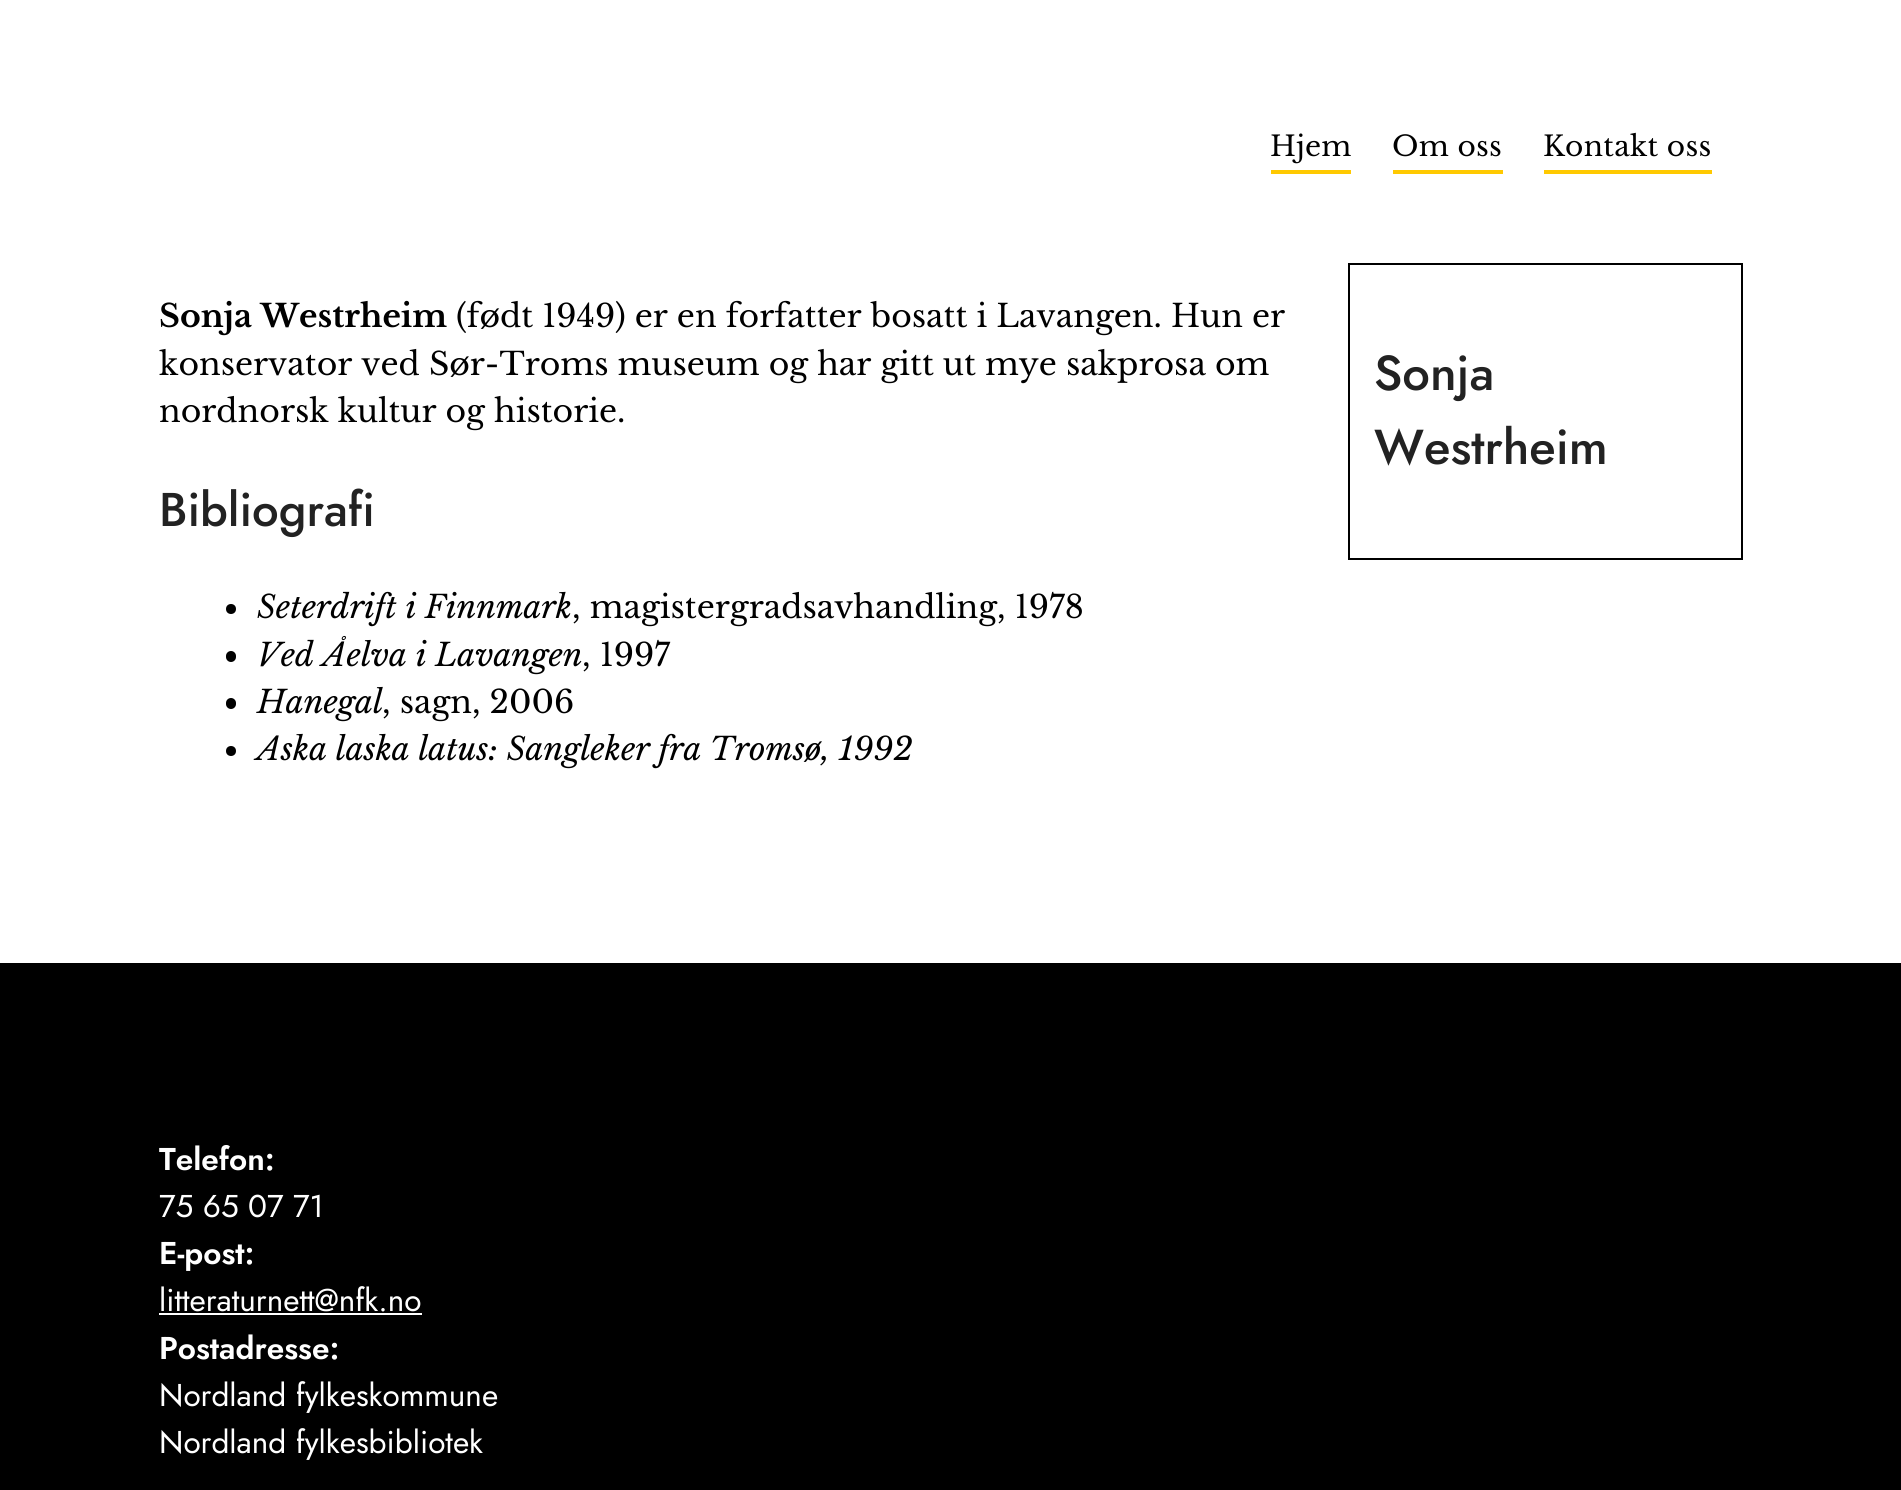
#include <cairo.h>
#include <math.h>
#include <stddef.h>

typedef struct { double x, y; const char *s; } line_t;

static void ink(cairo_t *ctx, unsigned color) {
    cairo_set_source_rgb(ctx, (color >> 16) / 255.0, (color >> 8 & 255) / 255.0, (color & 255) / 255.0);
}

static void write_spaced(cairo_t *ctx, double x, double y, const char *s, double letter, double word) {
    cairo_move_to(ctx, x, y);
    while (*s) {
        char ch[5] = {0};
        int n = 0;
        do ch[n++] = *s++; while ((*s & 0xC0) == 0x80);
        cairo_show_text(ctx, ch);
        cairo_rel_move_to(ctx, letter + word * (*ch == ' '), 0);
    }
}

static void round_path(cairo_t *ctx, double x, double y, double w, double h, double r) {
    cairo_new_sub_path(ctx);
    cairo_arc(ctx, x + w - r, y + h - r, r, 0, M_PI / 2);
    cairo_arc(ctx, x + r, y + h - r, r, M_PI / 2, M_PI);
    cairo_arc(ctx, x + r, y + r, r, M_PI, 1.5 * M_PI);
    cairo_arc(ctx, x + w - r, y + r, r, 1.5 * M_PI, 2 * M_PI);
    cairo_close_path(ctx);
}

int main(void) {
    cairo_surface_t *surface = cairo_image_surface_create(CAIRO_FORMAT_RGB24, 1901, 1490);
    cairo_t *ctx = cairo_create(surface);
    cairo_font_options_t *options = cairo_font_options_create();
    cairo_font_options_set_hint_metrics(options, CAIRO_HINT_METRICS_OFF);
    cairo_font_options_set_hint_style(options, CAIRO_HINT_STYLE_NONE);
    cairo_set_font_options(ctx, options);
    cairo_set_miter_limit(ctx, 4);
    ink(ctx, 0xFFFFFF);
    cairo_paint(ctx);
    cairo_select_font_face(ctx, "Libre Baskerville", CAIRO_FONT_SLANT_NORMAL, CAIRO_FONT_WEIGHT_NORMAL);
    cairo_set_font_size(ctx, 28);
    ink(ctx, 0x000000);
    write_spaced(ctx, 1270, 156, "Hjem", 0.3, 0);
    ink(ctx, 0xFFC900);
    cairo_rectangle(ctx, 1271, 170, 80, 4);
    cairo_fill(ctx);
    ink(ctx, 0x000000);
    write_spaced(ctx, 1392, 156, "Om oss", 0.3, 0);
    ink(ctx, 0xFFC900);
    cairo_rectangle(ctx, 1393, 170, 110, 4);
    cairo_fill(ctx);
    ink(ctx, 0x000000);
    write_spaced(ctx, 1543, 156, "Kontakt oss", 0.3, 0);
    ink(ctx, 0xFFC900);
    cairo_rectangle(ctx, 1544, 170, 168, 4);
    cairo_fill(ctx);
    cairo_select_font_face(ctx, "Libre Baskerville", CAIRO_FONT_SLANT_NORMAL, CAIRO_FONT_WEIGHT_BOLD);
    cairo_set_font_size(ctx, 31.5);
    ink(ctx, 0x000000);
    cairo_move_to(ctx, 159, 327);
    cairo_show_text(ctx, "Sonja Westrheim");
    cairo_select_font_face(ctx, "Libre Baskerville", CAIRO_FONT_SLANT_NORMAL, CAIRO_FONT_WEIGHT_NORMAL);
    {
        static const line_t items[] = {
            {456, 327, "(født 1949) er en forfatter bosatt i Lavangen. Hun er"},
            {159, 375, "konservator ved Sør-Troms museum og har gitt ut mye sakprosa om"},
            {159, 422, "nordnorsk kultur og historie."},
        };
        for (size_t i = 0; i < sizeof items / sizeof *items; i++) {
            cairo_move_to(ctx, items[i].x, items[i].y);
            cairo_show_text(ctx, items[i].s);
        }
    }
    cairo_select_font_face(ctx, "Jost Medium", CAIRO_FONT_SLANT_NORMAL, CAIRO_FONT_WEIGHT_NORMAL);
    cairo_set_font_size(ctx, 47.25);
    ink(ctx, 0x222222);
    cairo_move_to(ctx, 159, 526);
    cairo_show_text(ctx, "Bibliografi");
    ink(ctx, 0x000000);
    cairo_new_path(ctx);
    cairo_arc(ctx, 231, 609, 5, 0, 2 * M_PI);
    cairo_fill(ctx);
    cairo_select_font_face(ctx, "Libre Baskerville", CAIRO_FONT_SLANT_ITALIC, CAIRO_FONT_WEIGHT_NORMAL);
    cairo_set_font_size(ctx, 31.5);
    cairo_move_to(ctx, 257, 618);
    cairo_show_text(ctx, "Seterdrift i Finnmark");
    cairo_select_font_face(ctx, "Libre Baskerville", CAIRO_FONT_SLANT_NORMAL, CAIRO_FONT_WEIGHT_NORMAL);
    cairo_move_to(ctx, 572, 618);
    cairo_show_text(ctx, ", magistergradsavhandling, 1978");
    round_path(ctx, 226, 651, 10, 11, 5);
    cairo_fill(ctx);
    cairo_select_font_face(ctx, "Libre Baskerville", CAIRO_FONT_SLANT_ITALIC, CAIRO_FONT_WEIGHT_NORMAL);
    cairo_move_to(ctx, 257, 666);
    cairo_show_text(ctx, "Ved Åelva i Lavangen");
    cairo_select_font_face(ctx, "Libre Baskerville", CAIRO_FONT_SLANT_NORMAL, CAIRO_FONT_WEIGHT_NORMAL);
    cairo_move_to(ctx, 582, 666);
    cairo_show_text(ctx, ", 1997");
    round_path(ctx, 226, 698, 10, 11, 5);
    cairo_fill(ctx);
    cairo_select_font_face(ctx, "Libre Baskerville", CAIRO_FONT_SLANT_ITALIC, CAIRO_FONT_WEIGHT_NORMAL);
    cairo_move_to(ctx, 257, 713);
    cairo_show_text(ctx, "Hanegal");
    cairo_select_font_face(ctx, "Libre Baskerville", CAIRO_FONT_SLANT_NORMAL, CAIRO_FONT_WEIGHT_NORMAL);
    cairo_move_to(ctx, 382, 713);
    cairo_show_text(ctx, ", sagn, 2006");
    cairo_new_path(ctx);
    cairo_arc(ctx, 231, 751, 5, 0, 2 * M_PI);
    cairo_fill(ctx);
    cairo_select_font_face(ctx, "Libre Baskerville", CAIRO_FONT_SLANT_ITALIC, CAIRO_FONT_WEIGHT_NORMAL);
    cairo_move_to(ctx, 257, 760);
    cairo_show_text(ctx, "Aska laska latus: Sangleker fra Tromsø, 1992");
    cairo_rectangle(ctx, 1349, 264, 393, 295);
    cairo_stroke(ctx);
    cairo_select_font_face(ctx, "Jost Medium", CAIRO_FONT_SLANT_NORMAL, CAIRO_FONT_WEIGHT_NORMAL);
    cairo_set_font_size(ctx, 49);
    ink(ctx, 0x222222);
    cairo_move_to(ctx, 1374, 390);
    cairo_show_text(ctx, "Sonja");
    cairo_move_to(ctx, 1374, 464);
    cairo_show_text(ctx, "Westrheim");
    ink(ctx, 0x000000);
    cairo_rectangle(ctx, 0, 963, 1901, 527);
    cairo_fill(ctx);
    cairo_select_font_face(ctx, "Jost SemiBold", CAIRO_FONT_SLANT_NORMAL, CAIRO_FONT_WEIGHT_NORMAL);
    cairo_set_font_size(ctx, 31.5);
    ink(ctx, 0xFFFFFF);
    cairo_move_to(ctx, 159, 1170);
    cairo_show_text(ctx, "Telefon:");
    cairo_select_font_face(ctx, "Jost", CAIRO_FONT_SLANT_NORMAL, CAIRO_FONT_WEIGHT_NORMAL);
    cairo_move_to(ctx, 159, 1217);
    cairo_show_text(ctx, "75 65 07 71");
    cairo_select_font_face(ctx, "Jost SemiBold", CAIRO_FONT_SLANT_NORMAL, CAIRO_FONT_WEIGHT_NORMAL);
    cairo_move_to(ctx, 159, 1264);
    cairo_show_text(ctx, "E-post:");
    cairo_select_font_face(ctx, "Jost", CAIRO_FONT_SLANT_NORMAL, CAIRO_FONT_WEIGHT_NORMAL);
    cairo_move_to(ctx, 159, 1311);
    cairo_show_text(ctx, "litteraturnett@nfk.no");
    cairo_rectangle(ctx, 159, 1313, 263, 2);
    cairo_fill(ctx);
    cairo_select_font_face(ctx, "Jost SemiBold", CAIRO_FONT_SLANT_NORMAL, CAIRO_FONT_WEIGHT_NORMAL);
    cairo_move_to(ctx, 159, 1359);
    cairo_show_text(ctx, "Postadresse:");
    cairo_select_font_face(ctx, "Jost", CAIRO_FONT_SLANT_NORMAL, CAIRO_FONT_WEIGHT_NORMAL);
    cairo_move_to(ctx, 159, 1406);
    cairo_show_text(ctx, "Nordland fylkeskommune");
    cairo_move_to(ctx, 159, 1453);
    cairo_show_text(ctx, "Nordland fylkesbibliotek");
    cairo_surface_write_to_png(surface, "image.png");
    cairo_font_options_destroy(options);
    cairo_destroy(ctx);
    cairo_surface_destroy(surface);
    return 0;
}
